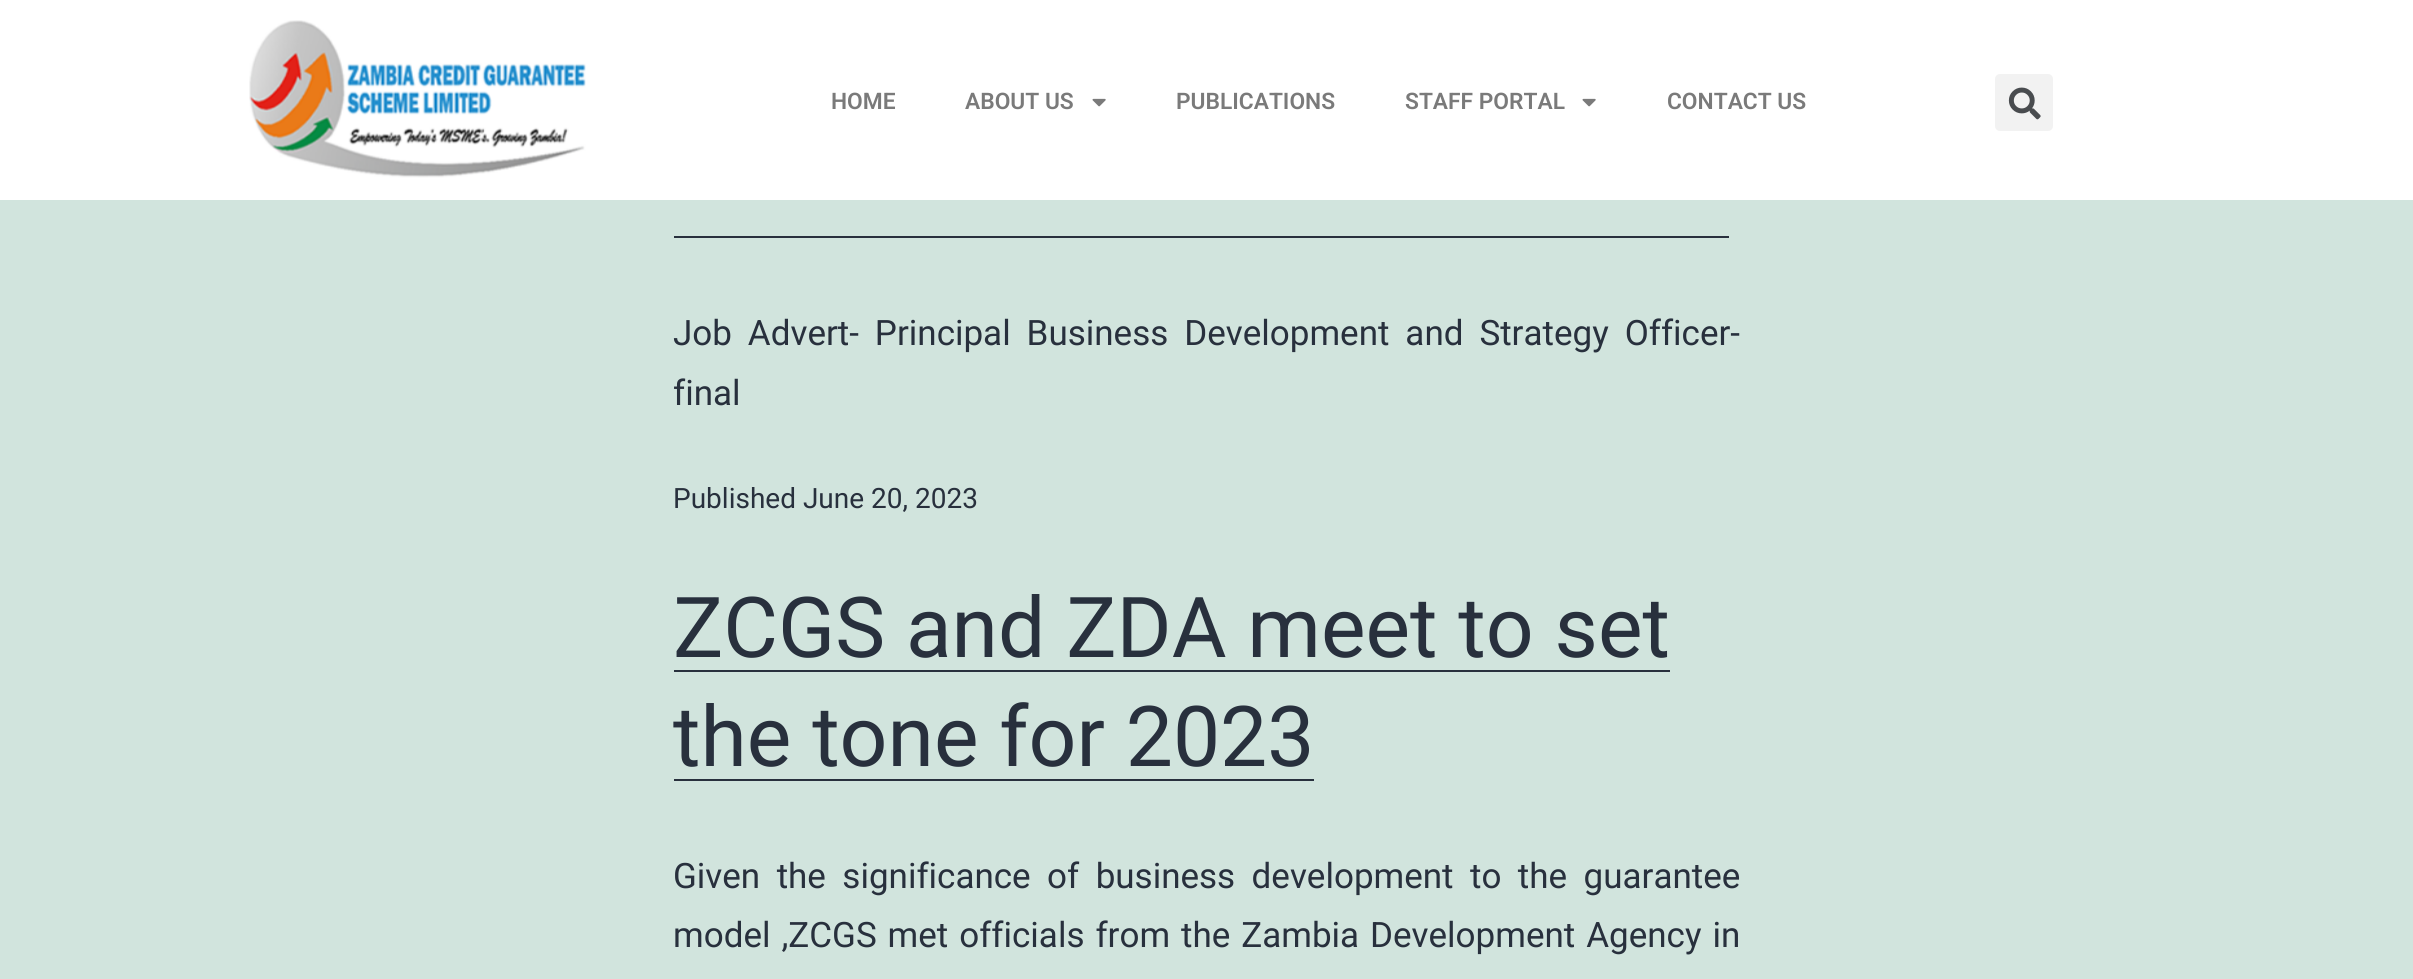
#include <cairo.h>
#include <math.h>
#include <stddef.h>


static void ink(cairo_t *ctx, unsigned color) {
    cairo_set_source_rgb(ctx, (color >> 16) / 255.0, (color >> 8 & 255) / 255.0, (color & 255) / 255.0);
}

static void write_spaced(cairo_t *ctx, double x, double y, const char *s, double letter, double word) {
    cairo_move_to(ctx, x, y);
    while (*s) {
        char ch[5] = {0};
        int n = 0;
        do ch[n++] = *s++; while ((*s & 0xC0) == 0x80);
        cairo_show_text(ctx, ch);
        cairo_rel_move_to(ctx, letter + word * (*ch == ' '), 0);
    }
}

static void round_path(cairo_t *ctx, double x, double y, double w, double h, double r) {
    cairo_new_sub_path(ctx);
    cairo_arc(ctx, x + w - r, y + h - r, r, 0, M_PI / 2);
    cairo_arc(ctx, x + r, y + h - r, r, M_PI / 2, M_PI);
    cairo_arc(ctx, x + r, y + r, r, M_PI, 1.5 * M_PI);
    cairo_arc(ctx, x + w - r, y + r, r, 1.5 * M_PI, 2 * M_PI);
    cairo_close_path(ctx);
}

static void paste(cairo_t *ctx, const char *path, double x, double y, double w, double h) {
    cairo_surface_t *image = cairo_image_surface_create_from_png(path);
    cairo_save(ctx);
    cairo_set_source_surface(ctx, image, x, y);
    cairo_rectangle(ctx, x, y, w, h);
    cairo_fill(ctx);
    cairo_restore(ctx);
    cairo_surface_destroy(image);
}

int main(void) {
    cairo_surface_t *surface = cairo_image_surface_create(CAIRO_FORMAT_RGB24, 2413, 979);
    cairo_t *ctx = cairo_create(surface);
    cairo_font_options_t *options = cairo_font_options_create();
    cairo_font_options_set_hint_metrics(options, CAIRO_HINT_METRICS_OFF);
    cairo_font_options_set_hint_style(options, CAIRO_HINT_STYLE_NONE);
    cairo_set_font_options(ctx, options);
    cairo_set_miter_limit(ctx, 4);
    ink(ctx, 0xD1E4DD);
    cairo_paint(ctx);
    ink(ctx, 0xFFFFFF);
    cairo_rectangle(ctx, 0, 0, 2413, 200);
    cairo_fill(ctx);
    paste(ctx, "media/1.png", 249, 20, 337, 158);
    cairo_select_font_face(ctx, "Roboto SemiBold", CAIRO_FONT_SLANT_NORMAL, CAIRO_FONT_WEIGHT_NORMAL);
    cairo_set_font_size(ctx, 22.75);
    ink(ctx, 0x7A7A7A);
    cairo_move_to(ctx, 831, 109);
    cairo_show_text(ctx, "HOME");
    cairo_move_to(ctx, 965, 109);
    cairo_show_text(ctx, "ABOUT US");
    paste(ctx, "media/2.png", 1092, 98, 14, 9);
    cairo_move_to(ctx, 1176, 109);
    cairo_show_text(ctx, "PUBLICATIONS");
    cairo_move_to(ctx, 1405, 109);
    cairo_show_text(ctx, "STAFF PORTAL");
    paste(ctx, "media/2.png", 1582, 98, 14, 9);
    cairo_move_to(ctx, 1667, 109);
    cairo_show_text(ctx, "CONTACT US");
    ink(ctx, 0xF2F2F2);
    round_path(ctx, 1995, 74, 58, 57, 5);
    cairo_fill(ctx);
    paste(ctx, "media/3.png", 2008, 87, 33, 33);
    ink(ctx, 0x28303D);
    cairo_rectangle(ctx, 674, 236, 1055, 2);
    cairo_fill(ctx);
    cairo_select_font_face(ctx, "Roboto", CAIRO_FONT_SLANT_NORMAL, CAIRO_FONT_WEIGHT_NORMAL);
    cairo_set_font_size(ctx, 35);
    write_spaced(ctx, 673, 345, "Job Advert- Principal Business Development and Strategy Officer-", 0, 7.25);
    cairo_move_to(ctx, 673, 405);
    cairo_show_text(ctx, "final");
    cairo_set_font_size(ctx, 28);
    cairo_move_to(ctx, 673, 508);
    cairo_show_text(ctx, "Published June 20, 2023");
    cairo_set_font_size(ctx, 84);
    cairo_move_to(ctx, 673, 657);
    cairo_show_text(ctx, "ZCGS and ZDA meet to set");
    cairo_rectangle(ctx, 674, 670, 996, 2);
    cairo_fill(ctx);
    cairo_move_to(ctx, 673, 766);
    cairo_show_text(ctx, "the tone for 2023");
    cairo_rectangle(ctx, 674, 779, 640, 2);
    cairo_fill(ctx);
    cairo_set_font_size(ctx, 35);
    write_spaced(ctx, 673, 888, "Given the significance of business development to the guarantee", 0, 7.75);
    write_spaced(ctx, 673, 947, "model ,ZCGS met officials from the Zambia Development Agency in", 0, 2.25);
    cairo_surface_write_to_png(surface, "image.png");
    cairo_font_options_destroy(options);
    cairo_destroy(ctx);
    cairo_surface_destroy(surface);
    return 0;
}
